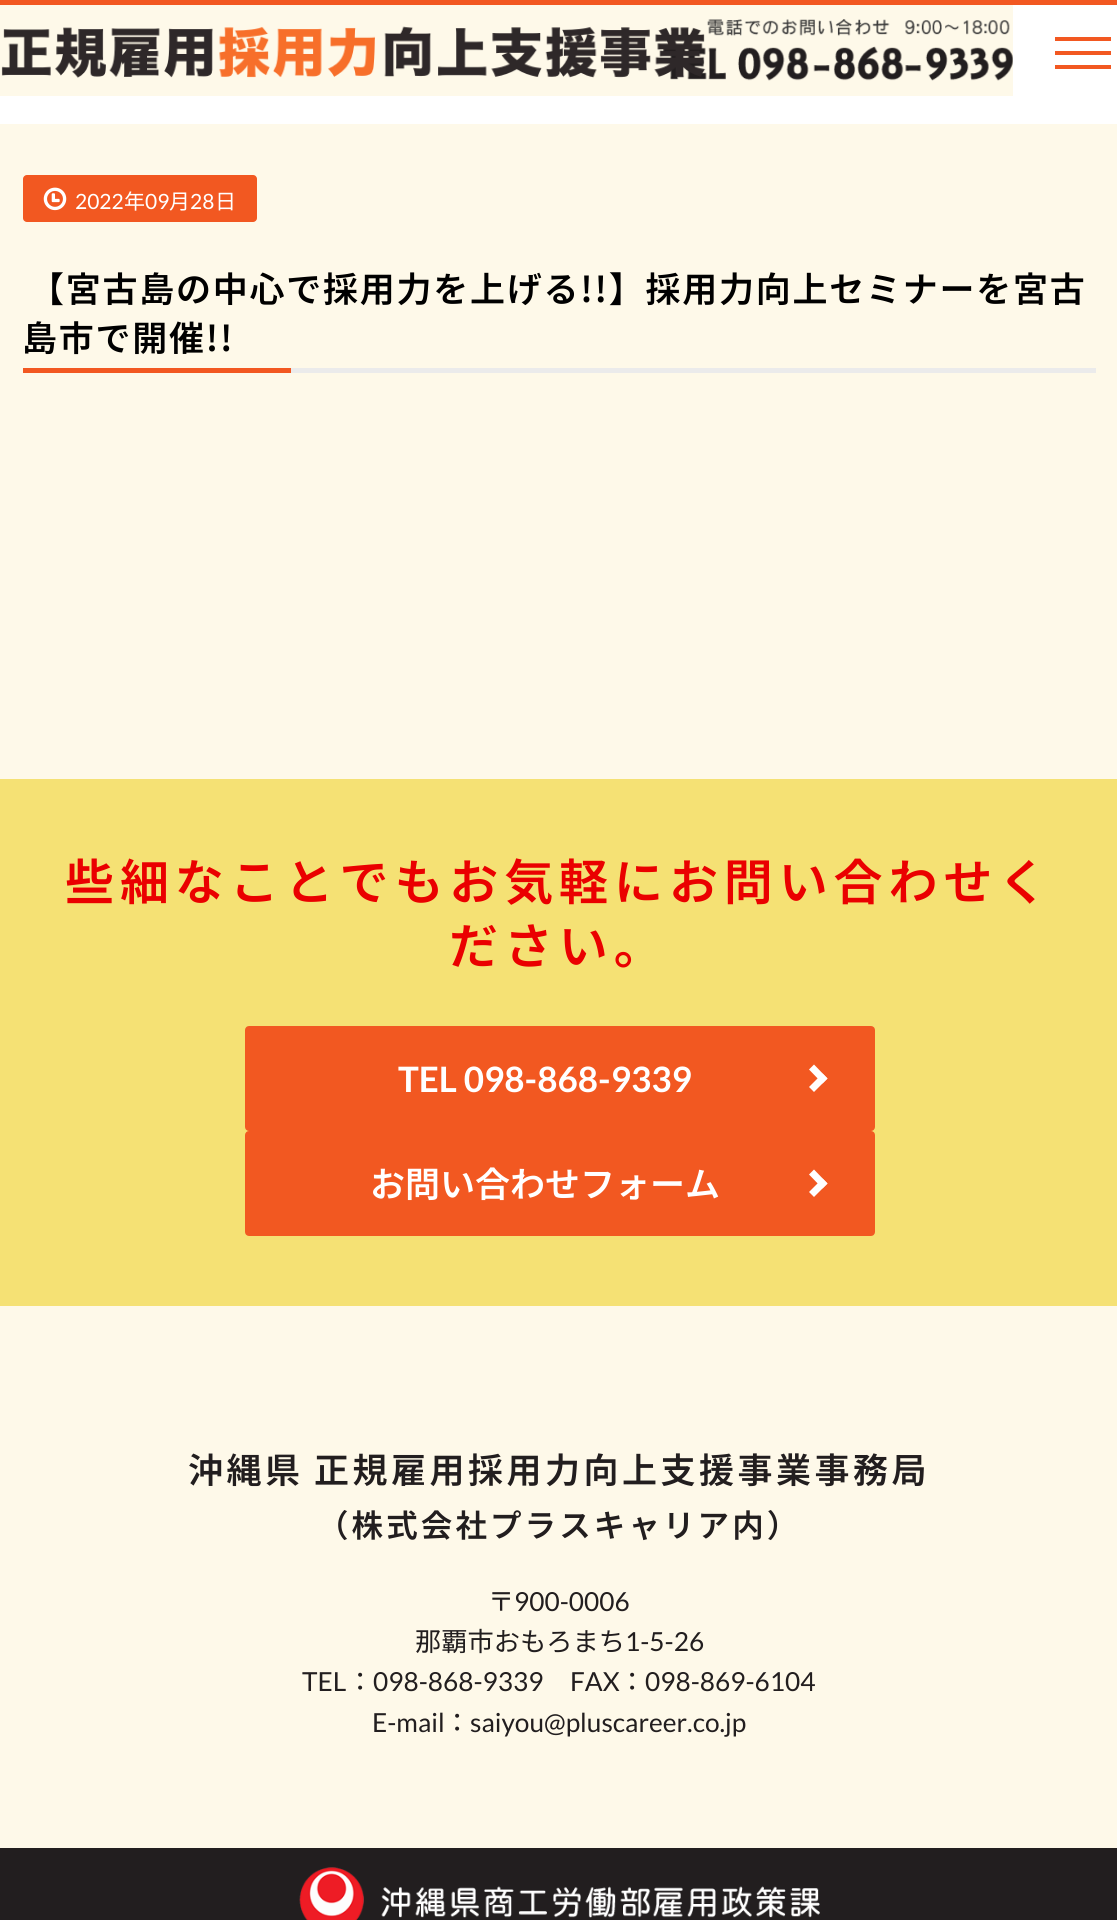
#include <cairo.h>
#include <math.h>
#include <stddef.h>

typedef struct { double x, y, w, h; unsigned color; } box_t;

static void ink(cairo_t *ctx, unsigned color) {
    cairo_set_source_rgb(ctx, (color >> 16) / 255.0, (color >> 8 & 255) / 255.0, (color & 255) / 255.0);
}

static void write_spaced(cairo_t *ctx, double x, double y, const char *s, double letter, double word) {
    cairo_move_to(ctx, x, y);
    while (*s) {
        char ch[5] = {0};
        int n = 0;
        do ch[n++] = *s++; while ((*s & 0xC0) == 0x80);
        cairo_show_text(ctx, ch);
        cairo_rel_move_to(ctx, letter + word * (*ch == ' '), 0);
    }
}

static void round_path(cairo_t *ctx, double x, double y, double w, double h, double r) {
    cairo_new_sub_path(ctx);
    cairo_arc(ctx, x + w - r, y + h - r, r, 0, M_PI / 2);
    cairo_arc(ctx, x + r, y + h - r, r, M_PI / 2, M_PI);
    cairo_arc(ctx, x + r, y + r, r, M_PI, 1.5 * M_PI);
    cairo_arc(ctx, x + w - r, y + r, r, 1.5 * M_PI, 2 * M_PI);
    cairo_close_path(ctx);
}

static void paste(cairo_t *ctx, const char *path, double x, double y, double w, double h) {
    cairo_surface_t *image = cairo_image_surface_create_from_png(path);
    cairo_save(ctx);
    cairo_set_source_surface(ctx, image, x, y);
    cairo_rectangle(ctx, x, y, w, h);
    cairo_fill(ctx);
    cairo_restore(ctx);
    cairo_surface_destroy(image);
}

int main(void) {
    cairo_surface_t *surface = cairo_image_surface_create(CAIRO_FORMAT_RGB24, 1117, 1920);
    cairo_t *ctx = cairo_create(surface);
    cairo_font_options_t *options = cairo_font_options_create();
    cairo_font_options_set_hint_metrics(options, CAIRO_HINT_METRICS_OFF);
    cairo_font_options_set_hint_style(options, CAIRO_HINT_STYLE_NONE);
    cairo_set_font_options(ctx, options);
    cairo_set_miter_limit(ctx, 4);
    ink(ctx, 0xFEF9E9);
    cairo_paint(ctx);
    {
        static const box_t items[] = {
            {0, 5, 1117, 119, 0xFFFFFF},
            {0, 0, 1117, 5, 0xF25821},
            {0, 5, 1013, 91, 0xFEF9E9},
        };
        for (size_t i = 0; i < sizeof items / sizeof *items; i++) {
            ink(ctx, items[i].color);
            cairo_rectangle(ctx, items[i].x, items[i].y, items[i].w, items[i].h);
            cairo_fill(ctx);
        }
    }
    paste(ctx, "media/1.png", 663, 19, 350, 62);
    paste(ctx, "media/2.png", 1, 26, 705, 52);
    {
        static const box_t items[] = {
            {1055, 37, 56, 4, 0xF25821},
            {1055, 51, 56, 4, 0xF25821},
            {1055, 65, 56, 4, 0xF25821},
        };
        for (size_t i = 0; i < sizeof items / sizeof *items; i++) {
            ink(ctx, items[i].color);
            cairo_rectangle(ctx, items[i].x, items[i].y, items[i].w, items[i].h);
            cairo_fill(ctx);
        }
    }
    round_path(ctx, 23, 175, 234, 47, 4);
    cairo_fill(ctx);
    paste(ctx, "media/3.png", 43, 187, 24, 24);
    cairo_select_font_face(ctx, "Lato", CAIRO_FONT_SLANT_NORMAL, CAIRO_FONT_WEIGHT_NORMAL);
    cairo_set_font_size(ctx, 21);
    ink(ctx, 0xFFFFFF);
    cairo_move_to(ctx, 75, 209);
    cairo_show_text(ctx, "2022");
    cairo_select_font_face(ctx, "Noto Sans JP", CAIRO_FONT_SLANT_NORMAL, CAIRO_FONT_WEIGHT_NORMAL);
    cairo_move_to(ctx, 124, 209);
    cairo_show_text(ctx, "年");
    cairo_select_font_face(ctx, "Lato", CAIRO_FONT_SLANT_NORMAL, CAIRO_FONT_WEIGHT_NORMAL);
    cairo_move_to(ctx, 145, 209);
    cairo_show_text(ctx, "09");
    cairo_select_font_face(ctx, "Noto Sans JP", CAIRO_FONT_SLANT_NORMAL, CAIRO_FONT_WEIGHT_NORMAL);
    cairo_move_to(ctx, 169, 209);
    cairo_show_text(ctx, "月");
    cairo_select_font_face(ctx, "Lato", CAIRO_FONT_SLANT_NORMAL, CAIRO_FONT_WEIGHT_NORMAL);
    cairo_move_to(ctx, 190, 209);
    cairo_show_text(ctx, "28");
    cairo_select_font_face(ctx, "Noto Sans JP", CAIRO_FONT_SLANT_NORMAL, CAIRO_FONT_WEIGHT_NORMAL);
    cairo_move_to(ctx, 215, 209);
    cairo_show_text(ctx, "日");
    ink(ctx, 0xEBEBEB);
    cairo_rectangle(ctx, 291, 368, 805, 5);
    cairo_fill(ctx);
    cairo_select_font_face(ctx, "Noto Sans JP SemiBold", CAIRO_FONT_SLANT_NORMAL, CAIRO_FONT_WEIGHT_NORMAL);
    cairo_set_font_size(ctx, 35);
    ink(ctx, 0x000000);
    write_spaced(ctx, 29, 302, "【宮古島の中心で採用力を上げる!!】採用力向上セミナーを宮古", 1.75, 0);
    write_spaced(ctx, 22, 351, "島市で開催!!", 1.75, 0);
    ink(ctx, 0xF25821);
    cairo_rectangle(ctx, 23, 368, 268, 5);
    cairo_fill(ctx);
    ink(ctx, 0xF5E174);
    cairo_rectangle(ctx, 0, 779, 1117, 527);
    cairo_fill(ctx);
    cairo_set_font_size(ctx, 49);
    ink(ctx, 0xEA0000);
    write_spaced(ctx, 65, 900, "些細なことでもお気軽にお問い合わせく", 5.9, 0);
    write_spaced(ctx, 449, 964, "ださい。", 5.9, 0);
    ink(ctx, 0xF25821);
    round_path(ctx, 248.5, 1029.5, 623, 98, 0.5);
    cairo_fill_preserve(ctx);
    cairo_set_line_width(ctx, 7);
    cairo_stroke(ctx);
    cairo_select_font_face(ctx, "Lato", CAIRO_FONT_SLANT_NORMAL, CAIRO_FONT_WEIGHT_BOLD);
    cairo_set_font_size(ctx, 35);
    ink(ctx, 0xFFFFFF);
    cairo_move_to(ctx, 398, 1092);
    cairo_show_text(ctx, "TEL 098-868-9339");
    cairo_new_path(ctx);
    cairo_move_to(ctx, 814, 1064.5);
    cairo_line_to(ctx, 827.5, 1078.5);
    cairo_line_to(ctx, 822.5, 1083.5);
    cairo_line_to(ctx, 809, 1069.5);
    cairo_close_path(ctx);
    cairo_fill(ctx);
    cairo_new_path(ctx);
    cairo_move_to(ctx, 822.5, 1073.5);
    cairo_line_to(ctx, 827.5, 1078.5);
    cairo_line_to(ctx, 814, 1092);
    cairo_line_to(ctx, 809, 1087);
    cairo_close_path(ctx);
    cairo_fill(ctx);
    ink(ctx, 0xF25821);
    round_path(ctx, 248.5, 1134.5, 623, 98, 0.5);
    cairo_fill_preserve(ctx);
    cairo_stroke(ctx);
    cairo_select_font_face(ctx, "Noto Sans JP SemiBold", CAIRO_FONT_SLANT_NORMAL, CAIRO_FONT_WEIGHT_NORMAL);
    ink(ctx, 0xFFFFFF);
    cairo_move_to(ctx, 370, 1197);
    cairo_show_text(ctx, "お問い合わせフォーム");
    cairo_new_path(ctx);
    cairo_move_to(ctx, 814, 1169.5);
    cairo_line_to(ctx, 827.5, 1183.5);
    cairo_line_to(ctx, 822.5, 1188.5);
    cairo_line_to(ctx, 809, 1174.5);
    cairo_close_path(ctx);
    cairo_fill(ctx);
    cairo_new_path(ctx);
    cairo_move_to(ctx, 822.5, 1178.5);
    cairo_line_to(ctx, 827.5, 1183.5);
    cairo_line_to(ctx, 814, 1197);
    cairo_line_to(ctx, 809, 1192);
    cairo_close_path(ctx);
    cairo_fill(ctx);
    ink(ctx, 0x221E1F);
    write_spaced(ctx, 188, 1483, "沖縄県 正規雇用採用力向上支援事業事務局", 3.5, -1);
    cairo_set_font_size(ctx, 31.5);
    write_spaced(ctx, 317, 1537, "（株式会社プラスキャリア内）", 3.1, 0);
    cairo_select_font_face(ctx, "Noto Sans JP", CAIRO_FONT_SLANT_NORMAL, CAIRO_FONT_WEIGHT_NORMAL);
    cairo_set_font_size(ctx, 26.25);
    cairo_move_to(ctx, 488, 1611);
    cairo_show_text(ctx, "〒");
    cairo_select_font_face(ctx, "Lato", CAIRO_FONT_SLANT_NORMAL, CAIRO_FONT_WEIGHT_NORMAL);
    cairo_move_to(ctx, 514, 1611);
    cairo_show_text(ctx, "900-0006");
    cairo_select_font_face(ctx, "Noto Sans JP", CAIRO_FONT_SLANT_NORMAL, CAIRO_FONT_WEIGHT_NORMAL);
    cairo_move_to(ctx, 415, 1651);
    cairo_show_text(ctx, "那覇市おもろまち");
    cairo_select_font_face(ctx, "Lato", CAIRO_FONT_SLANT_NORMAL, CAIRO_FONT_WEIGHT_NORMAL);
    cairo_move_to(ctx, 625, 1651);
    cairo_show_text(ctx, "1-5-26");
    cairo_move_to(ctx, 302, 1691);
    cairo_show_text(ctx, "TEL");
    cairo_select_font_face(ctx, "Noto Sans JP", CAIRO_FONT_SLANT_NORMAL, CAIRO_FONT_WEIGHT_NORMAL);
    cairo_move_to(ctx, 347, 1691);
    cairo_show_text(ctx, "：");
    cairo_select_font_face(ctx, "Lato", CAIRO_FONT_SLANT_NORMAL, CAIRO_FONT_WEIGHT_NORMAL);
    cairo_move_to(ctx, 373, 1691);
    cairo_show_text(ctx, "098-868-9339");
    cairo_move_to(ctx, 570, 1691);
    cairo_show_text(ctx, "FAX");
    cairo_select_font_face(ctx, "Noto Sans JP", CAIRO_FONT_SLANT_NORMAL, CAIRO_FONT_WEIGHT_NORMAL);
    cairo_move_to(ctx, 619, 1691);
    cairo_show_text(ctx, "：");
    cairo_select_font_face(ctx, "Lato", CAIRO_FONT_SLANT_NORMAL, CAIRO_FONT_WEIGHT_NORMAL);
    cairo_move_to(ctx, 645, 1691);
    cairo_show_text(ctx, "098-869-6104");
    cairo_move_to(ctx, 372, 1732);
    cairo_show_text(ctx, "E-mail");
    cairo_select_font_face(ctx, "Noto Sans JP", CAIRO_FONT_SLANT_NORMAL, CAIRO_FONT_WEIGHT_NORMAL);
    cairo_move_to(ctx, 444, 1732);
    cairo_show_text(ctx, "：");
    cairo_select_font_face(ctx, "Lato", CAIRO_FONT_SLANT_NORMAL, CAIRO_FONT_WEIGHT_NORMAL);
    cairo_move_to(ctx, 470, 1732);
    cairo_show_text(ctx, "saiyou@pluscareer.co.jp");
    cairo_rectangle(ctx, 0, 1848, 1117, 72);
    cairo_fill(ctx);
    paste(ctx, "media/4.png", 299, 1867, 521, 53);
    cairo_surface_write_to_png(surface, "image.png");
    cairo_font_options_destroy(options);
    cairo_destroy(ctx);
    cairo_surface_destroy(surface);
    return 0;
}
